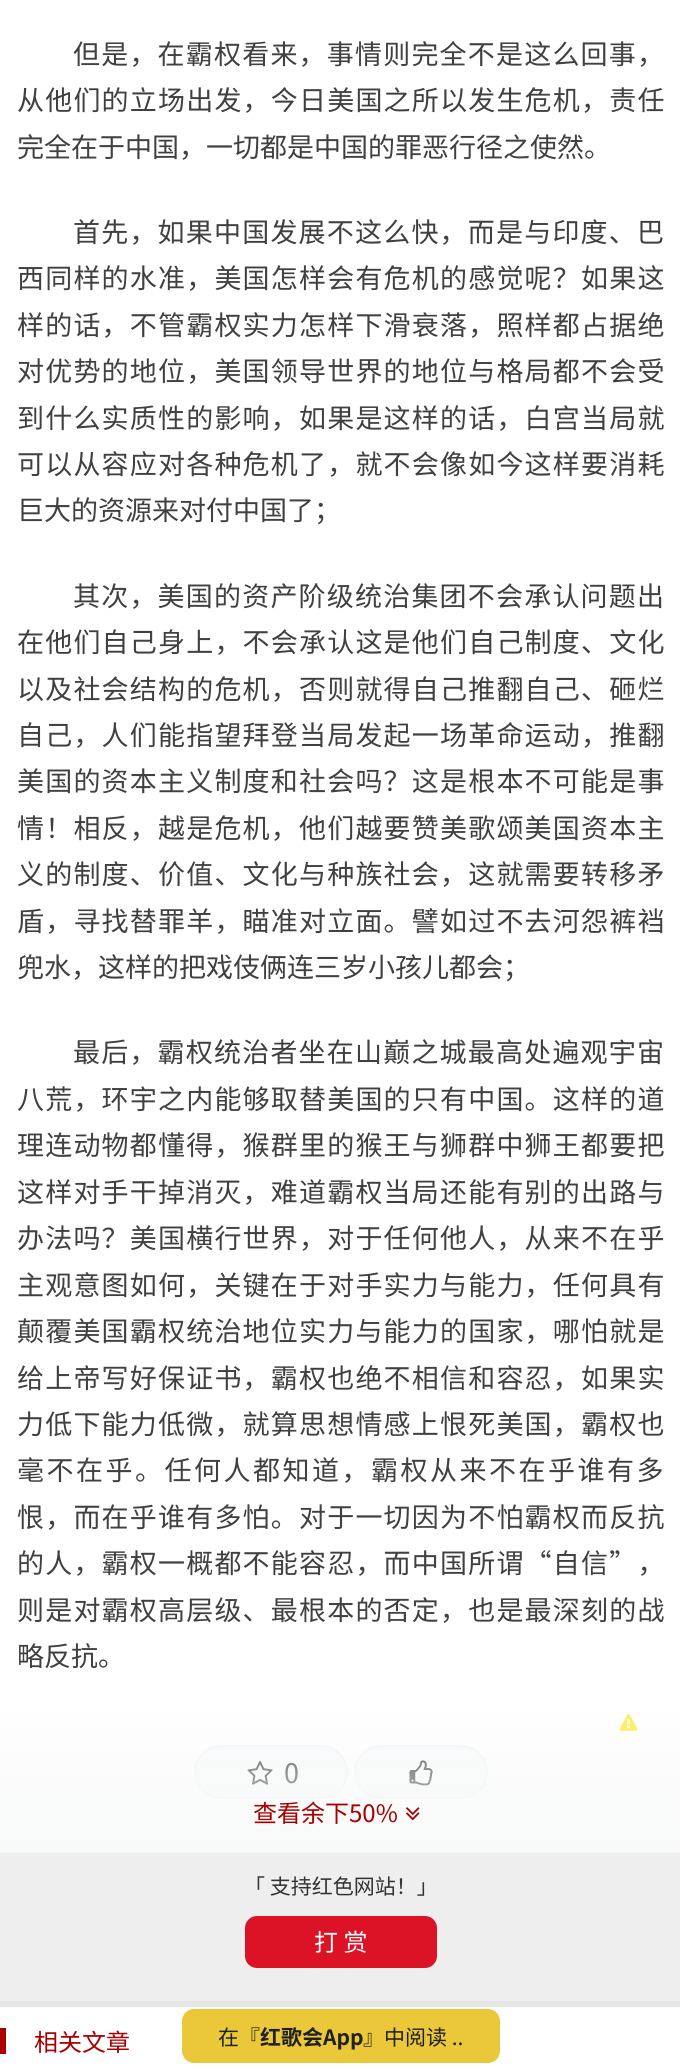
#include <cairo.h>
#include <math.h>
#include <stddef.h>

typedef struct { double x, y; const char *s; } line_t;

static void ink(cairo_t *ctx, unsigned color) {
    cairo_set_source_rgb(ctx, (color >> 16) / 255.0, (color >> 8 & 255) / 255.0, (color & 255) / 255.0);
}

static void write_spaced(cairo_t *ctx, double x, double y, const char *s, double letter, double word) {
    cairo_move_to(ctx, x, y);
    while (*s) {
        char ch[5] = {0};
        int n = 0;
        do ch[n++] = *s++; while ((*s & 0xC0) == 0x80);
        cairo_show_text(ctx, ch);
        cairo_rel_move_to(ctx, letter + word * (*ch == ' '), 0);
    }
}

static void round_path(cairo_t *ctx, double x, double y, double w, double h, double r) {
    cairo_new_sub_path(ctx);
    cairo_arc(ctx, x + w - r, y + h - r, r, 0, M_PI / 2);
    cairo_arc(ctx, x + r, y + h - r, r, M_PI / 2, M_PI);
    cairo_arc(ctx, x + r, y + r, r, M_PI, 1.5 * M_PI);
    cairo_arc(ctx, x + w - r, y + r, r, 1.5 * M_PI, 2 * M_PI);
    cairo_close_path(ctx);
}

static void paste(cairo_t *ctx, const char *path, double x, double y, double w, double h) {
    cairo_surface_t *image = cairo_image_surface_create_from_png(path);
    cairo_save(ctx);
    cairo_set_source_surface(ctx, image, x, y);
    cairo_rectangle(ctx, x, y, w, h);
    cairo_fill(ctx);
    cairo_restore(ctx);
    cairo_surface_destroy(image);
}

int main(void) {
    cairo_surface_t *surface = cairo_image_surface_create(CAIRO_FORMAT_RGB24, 680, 2069);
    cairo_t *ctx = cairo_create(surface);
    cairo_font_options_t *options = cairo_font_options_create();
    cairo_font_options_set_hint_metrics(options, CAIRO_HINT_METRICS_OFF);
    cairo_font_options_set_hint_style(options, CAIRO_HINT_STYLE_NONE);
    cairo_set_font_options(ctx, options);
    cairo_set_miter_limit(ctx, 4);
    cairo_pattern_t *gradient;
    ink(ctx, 0xFFFFFF);
    cairo_paint(ctx);
    cairo_select_font_face(ctx, "Noto Sans CJK SC", CAIRO_FONT_SLANT_NORMAL, CAIRO_FONT_WEIGHT_NORMAL);
    cairo_set_font_size(ctx, 27);
    ink(ctx, 0x404040);
    write_spaced(ctx, 73, 64, "但是，在霸权看来，事情则完全不是这么回事，", 1.2, 0);
    write_spaced(ctx, 17, 110, "从他们的立场出发，今日美国之所以发生危机，责任", 1.2, 0);
    cairo_move_to(ctx, 17, 157);
    cairo_show_text(ctx, "完全在于中国，一切都是中国的罪恶行径之使然。");
    {
        static const line_t items[] = {
            {73, 242, "首先，如果中国发展不这么快，而是与印度、巴"},
            {17, 288, "西同样的水准，美国怎样会有危机的感觉呢？如果这"},
            {17, 335, "样的话，不管霸权实力怎样下滑衰落，照样都占据绝"},
            {17, 381, "对优势的地位，美国领导世界的地位与格局都不会受"},
            {17, 428, "到什么实质性的影响，如果是这样的话，白宫当局就"},
            {17, 474, "可以从容应对各种危机了，就不会像如今这样要消耗"},
        };
        for (size_t i = 0; i < sizeof items / sizeof *items; i++) {
            write_spaced(ctx, items[i].x, items[i].y, items[i].s, 1.2, 0);
        }
    }
    cairo_move_to(ctx, 17, 520);
    cairo_show_text(ctx, "巨大的资源来对付中国了；");
    {
        static const line_t items[] = {
            {73, 606, "其次，美国的资产阶级统治集团不会承认问题出"},
            {17, 652, "在他们自己身上，不会承认这是他们自己制度、文化"},
            {17, 699, "以及社会结构的危机，否则就得自己推翻自己、砸烂"},
            {17, 745, "自己，人们能指望拜登当局发起一场革命运动，推翻"},
            {17, 791, "美国的资本主义制度和社会吗？这是根本不可能是事"},
            {17, 838, "情！相反，越是危机，他们越要赞美歌颂美国资本主"},
            {17, 884, "义的制度、价值、文化与种族社会，这就需要转移矛"},
            {17, 931, "盾，寻找替罪羊，瞄准对立面。譬如过不去河怨裤裆"},
        };
        for (size_t i = 0; i < sizeof items / sizeof *items; i++) {
            write_spaced(ctx, items[i].x, items[i].y, items[i].s, 1.2, 0);
        }
    }
    cairo_move_to(ctx, 17, 977);
    cairo_show_text(ctx, "兜水，这样的把戏伎俩连三岁小孩儿都会；");
    {
        static const line_t items[] = {
            {73, 1062, "最后，霸权统治者坐在山巅之城最高处遍观宇宙"},
            {17, 1109, "八荒，环宇之内能够取替美国的只有中国。这样的道"},
            {17, 1155, "理连动物都懂得，猴群里的猴王与狮群中狮王都要把"},
            {17, 1202, "这样对手干掉消灭，难道霸权当局还能有别的出路与"},
            {17, 1248, "办法吗？美国横行世界，对于任何他人，从来不在乎"},
            {17, 1295, "主观意图如何，关键在于对手实力与能力，任何具有"},
            {17, 1341, "颠覆美国霸权统治地位实力与能力的国家，哪怕就是"},
            {17, 1388, "给上帝写好保证书，霸权也绝不相信和容忍，如果实"},
            {17, 1434, "力低下能力低微，就算思想情感上恨死美国，霸权也"},
        };
        for (size_t i = 0; i < sizeof items / sizeof *items; i++) {
            write_spaced(ctx, items[i].x, items[i].y, items[i].s, 1.2, 0);
        }
    }
    write_spaced(ctx, 17, 1480, "毫不在乎。任何人都知道，霸权从来不在乎谁有多", 2.5, 0);
    {
        static const line_t items[] = {
            {17, 1527, "恨，而在乎谁有多怕。对于一切因为不怕霸权而反抗"},
            {17, 1573, "的人，霸权一概都不能容忍，而中国所谓“自信”，"},
            {17, 1620, "则是对霸权高层级、最根本的否定，也是最深刻的战"},
        };
        for (size_t i = 0; i < sizeof items / sizeof *items; i++) {
            write_spaced(ctx, items[i].x, items[i].y, items[i].s, 1.2, 0);
        }
    }
    cairo_move_to(ctx, 17, 1666);
    cairo_show_text(ctx, "略反抗。");
    paste(ctx, "media/1.png", 619, 1714, 19, 17);
    ink(ctx, 0xF9FAFB);
    round_path(ctx, 195, 1746, 152, 52, 26);
    cairo_fill_preserve(ctx);
    ink(ctx, 0xF3F4F6);
    cairo_stroke(ctx);
    paste(ctx, "media/2.png", 247, 1760, 26, 25);
    ink(ctx, 0x202122);
    cairo_move_to(ctx, 284, 1783);
    cairo_show_text(ctx, "0");
    ink(ctx, 0xF9FAFB);
    round_path(ctx, 355, 1746, 132, 52, 26);
    cairo_fill_preserve(ctx);
    ink(ctx, 0xF3F4F6);
    cairo_stroke(ctx);
    paste(ctx, "media/3.png", 409, 1760, 24, 26);
    ink(ctx, 0xEEEEEE);
    cairo_rectangle(ctx, 0, 1847, 680, 154);
    cairo_fill(ctx);
    gradient = cairo_pattern_create_linear(341, 1685, 341, 1853);
    cairo_pattern_add_color_stop_rgba(gradient, 0, 0.973, 0.976, 0.976, 0);
    cairo_pattern_add_color_stop_rgba(gradient, 1, 0.973, 0.976, 0.976, 1);
    cairo_set_source(ctx, gradient);
    cairo_pattern_destroy(gradient);
    cairo_rectangle(ctx, 0, 1714, 680, 139);
    cairo_fill(ctx);
    cairo_set_font_size(ctx, 24);
    ink(ctx, 0xA80000);
    cairo_move_to(ctx, 253, 1822);
    cairo_show_text(ctx, "查看余下50%");
    paste(ctx, "media/4.png", 406, 1807, 14, 14);
    cairo_set_font_size(ctx, 21);
    ink(ctx, 0x333333);
    cairo_move_to(ctx, 244, 1894);
    cairo_show_text(ctx, "「 支持红色网站！」");
    ink(ctx, 0xDC1226);
    round_path(ctx, 246, 1917, 190, 50, 11);
    cairo_fill_preserve(ctx);
    cairo_stroke(ctx);
    cairo_set_font_size(ctx, 24);
    ink(ctx, 0xFFFFFF);
    cairo_move_to(ctx, 314, 1951);
    cairo_show_text(ctx, "打 赏");
    ink(ctx, 0xE6E6E6);
    cairo_rectangle(ctx, 0, 2001, 680, 6);
    cairo_fill(ctx);
    ink(ctx, 0xA80000);
    cairo_rectangle(ctx, 0, 2028, 6, 26);
    cairo_fill(ctx);
    cairo_move_to(ctx, 34, 2051);
    cairo_show_text(ctx, "相关文章");
    ink(ctx, 0xEAC839);
    cairo_new_path(ctx);
    cairo_move_to(ctx, 194, 2009);
    cairo_line_to(ctx, 260, 2009);
    cairo_line_to(ctx, 260, 2063);
    cairo_line_to(ctx, 194, 2063);
    cairo_curve_to(ctx, 187.5, 2063, 182, 2057.5, 182, 2051);
    cairo_line_to(ctx, 182, 2021);
    cairo_curve_to(ctx, 182, 2014.5, 187.5, 2009, 194, 2009);
    cairo_close_path(ctx);
    cairo_fill(ctx);
    cairo_set_font_size(ctx, 21);
    ink(ctx, 0x202122);
    cairo_move_to(ctx, 218, 2045);
    cairo_show_text(ctx, "在『");
    ink(ctx, 0xEAC839);
    cairo_rectangle(ctx, 260, 2009, 103, 54);
    cairo_fill(ctx);
    cairo_select_font_face(ctx, "Noto Sans CJK SC", CAIRO_FONT_SLANT_NORMAL, CAIRO_FONT_WEIGHT_BOLD);
    ink(ctx, 0x202122);
    cairo_move_to(ctx, 260, 2045);
    cairo_show_text(ctx, "红歌会App");
    ink(ctx, 0xEAC839);
    cairo_new_path(ctx);
    cairo_move_to(ctx, 363, 2009);
    cairo_line_to(ctx, 488, 2009);
    cairo_curve_to(ctx, 494.5, 2009, 500, 2014.5, 500, 2021);
    cairo_line_to(ctx, 500, 2051);
    cairo_curve_to(ctx, 500, 2057.5, 494.5, 2063, 488, 2063);
    cairo_line_to(ctx, 363, 2063);
    cairo_close_path(ctx);
    cairo_fill(ctx);
    cairo_select_font_face(ctx, "Noto Sans CJK SC", CAIRO_FONT_SLANT_NORMAL, CAIRO_FONT_WEIGHT_NORMAL);
    ink(ctx, 0x202122);
    cairo_move_to(ctx, 363, 2045);
    cairo_show_text(ctx, "』中阅读 ..");
    cairo_surface_write_to_png(surface, "image.png");
    cairo_font_options_destroy(options);
    cairo_destroy(ctx);
    cairo_surface_destroy(surface);
    return 0;
}
